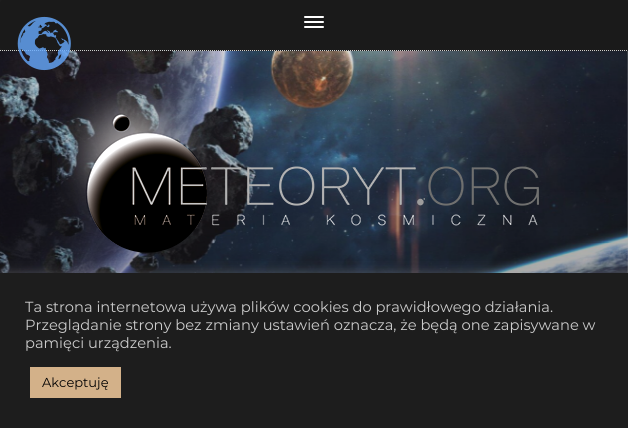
#include <cairo.h>
#include <math.h>
#include <stddef.h>

typedef struct { double x, y; const char *s; } line_t;

static void ink(cairo_t *ctx, unsigned color) {
    cairo_set_source_rgb(ctx, (color >> 16) / 255.0, (color >> 8 & 255) / 255.0, (color & 255) / 255.0);
}

static void round_path(cairo_t *ctx, double x, double y, double w, double h, double r) {
    cairo_new_sub_path(ctx);
    cairo_arc(ctx, x + w - r, y + h - r, r, 0, M_PI / 2);
    cairo_arc(ctx, x + r, y + h - r, r, M_PI / 2, M_PI);
    cairo_arc(ctx, x + r, y + r, r, M_PI, 1.5 * M_PI);
    cairo_arc(ctx, x + w - r, y + r, r, 1.5 * M_PI, 2 * M_PI);
    cairo_close_path(ctx);
}

static void blur_box(cairo_t *ctx, double x, double y, double w, double h, double r, double blur, double alpha) {
    cairo_push_group_with_content(ctx, CAIRO_CONTENT_ALPHA);
    cairo_set_operator(ctx, CAIRO_OPERATOR_SOURCE);
    for (int i = 15; i >= -15 && fmin(w, h) + blur * i / 3 > 0; i -= 2) {
        double e = blur * i / 6;
        cairo_set_source_rgba(ctx, 0, 0, 0, alpha * erfc((i - 1) / 8.5) / 2);
        round_path(ctx, x - e, y - e, w + 2 * e, h + 2 * e, fmax(0, fmin(r + e + blur * .6, fmin(w, h) / 2 + e)));
        cairo_fill(ctx);
    }
    cairo_pattern_t *soft = cairo_pop_group(ctx);
    cairo_mask(ctx, soft);
    cairo_pattern_destroy(soft);
}

static void paste(cairo_t *ctx, const char *path, double x, double y, double w, double h) {
    cairo_surface_t *image = cairo_image_surface_create_from_png(path);
    cairo_save(ctx);
    cairo_set_source_surface(ctx, image, x, y);
    cairo_rectangle(ctx, x, y, w, h);
    cairo_fill(ctx);
    cairo_restore(ctx);
    cairo_surface_destroy(image);
}

int main(void) {
    cairo_surface_t *surface = cairo_image_surface_create(CAIRO_FORMAT_RGB24, 628, 428);
    cairo_t *ctx = cairo_create(surface);
    cairo_font_options_t *options = cairo_font_options_create();
    cairo_font_options_set_hint_metrics(options, CAIRO_HINT_METRICS_OFF);
    cairo_font_options_set_hint_style(options, CAIRO_HINT_STYLE_NONE);
    cairo_set_font_options(ctx, options);
    cairo_set_miter_limit(ctx, 4);
    cairo_pattern_t *gradient;
    ink(ctx, 0xFFFFFF);
    cairo_paint(ctx);
    ink(ctx, 0x1D1D1D);
    cairo_rectangle(ctx, 0, 0, 628, 51);
    cairo_fill(ctx);
    cairo_new_path(ctx);
    cairo_move_to(ctx, 0, 50.5);
    cairo_line_to(ctx, 628, 50.5);
    ink(ctx, 0xCCCCCC);
    cairo_set_line_width(ctx, 1);
    cairo_set_dash(ctx, (double[]){1, 1}, 2, 0);
    cairo_stroke(ctx);
    ink(ctx, 0x1A1A1A);
    round_path(ctx, 0, 0, 628, 50, 3);
    cairo_fill(ctx);
    ink(ctx, 0xFFFFFF);
    round_path(ctx, 304, 16, 20, 2, 1);
    cairo_fill(ctx);
    round_path(ctx, 304, 21, 20, 2, 1);
    cairo_fill(ctx);
    round_path(ctx, 304, 26, 20, 2, 1);
    cairo_fill(ctx);
    paste(ctx, "media/2.png", 0, 51, 628, 222);
    gradient = cairo_pattern_create_linear(314, 0, 314, 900);
    cairo_pattern_add_color_stop_rgba(gradient, 0, 0.114, 0.114, 0.114, 0.1);
    cairo_pattern_add_color_stop_rgba(gradient, 1, 0.114, 0.114, 0.114, 1);
    cairo_set_source(ctx, gradient);
    cairo_pattern_destroy(gradient);
    cairo_rectangle(ctx, 0, 51, 628, 222);
    cairo_fill(ctx);
    paste(ctx, "media/1.png", 17, 16, 54, 55);
    paste(ctx, "media/3.png", 52, 74, 487, 179);
    ink(ctx, 0xACABAB);
    blur_box(ctx, 0, 272, 628, 155, 0, 5, 0.3);
    ink(ctx, 0x1D1D1D);
    cairo_rectangle(ctx, 0, 273, 628, 155);
    cairo_fill(ctx);
    cairo_select_font_face(ctx, "Montserrat", CAIRO_FONT_SLANT_NORMAL, CAIRO_FONT_WEIGHT_NORMAL);
    cairo_set_font_size(ctx, 14.65);
    ink(ctx, 0xCCCCCC);
    {
        static const line_t items[] = {
            {25, 312, "Ta strona internetowa używa plików cookies do prawidłowego działania."},
            {25, 330, "Przeglądanie strony bez zmiany ustawień oznacza, że będą one zapisywane w"},
            {25, 348, "pamięci urządzenia."},
        };
        for (size_t i = 0; i < sizeof items / sizeof *items; i++) {
            cairo_move_to(ctx, items[i].x, items[i].y);
            cairo_show_text(ctx, items[i].s);
        }
    }
    ink(ctx, 0xD3B189);
    cairo_rectangle(ctx, 30, 367, 91, 31);
    cairo_fill(ctx);
    cairo_set_font_size(ctx, 13);
    ink(ctx, 0x020202);
    cairo_move_to(ctx, 42, 387);
    cairo_show_text(ctx, "Akceptuję");
    cairo_surface_write_to_png(surface, "image.png");
    cairo_font_options_destroy(options);
    cairo_destroy(ctx);
    cairo_surface_destroy(surface);
    return 0;
}
